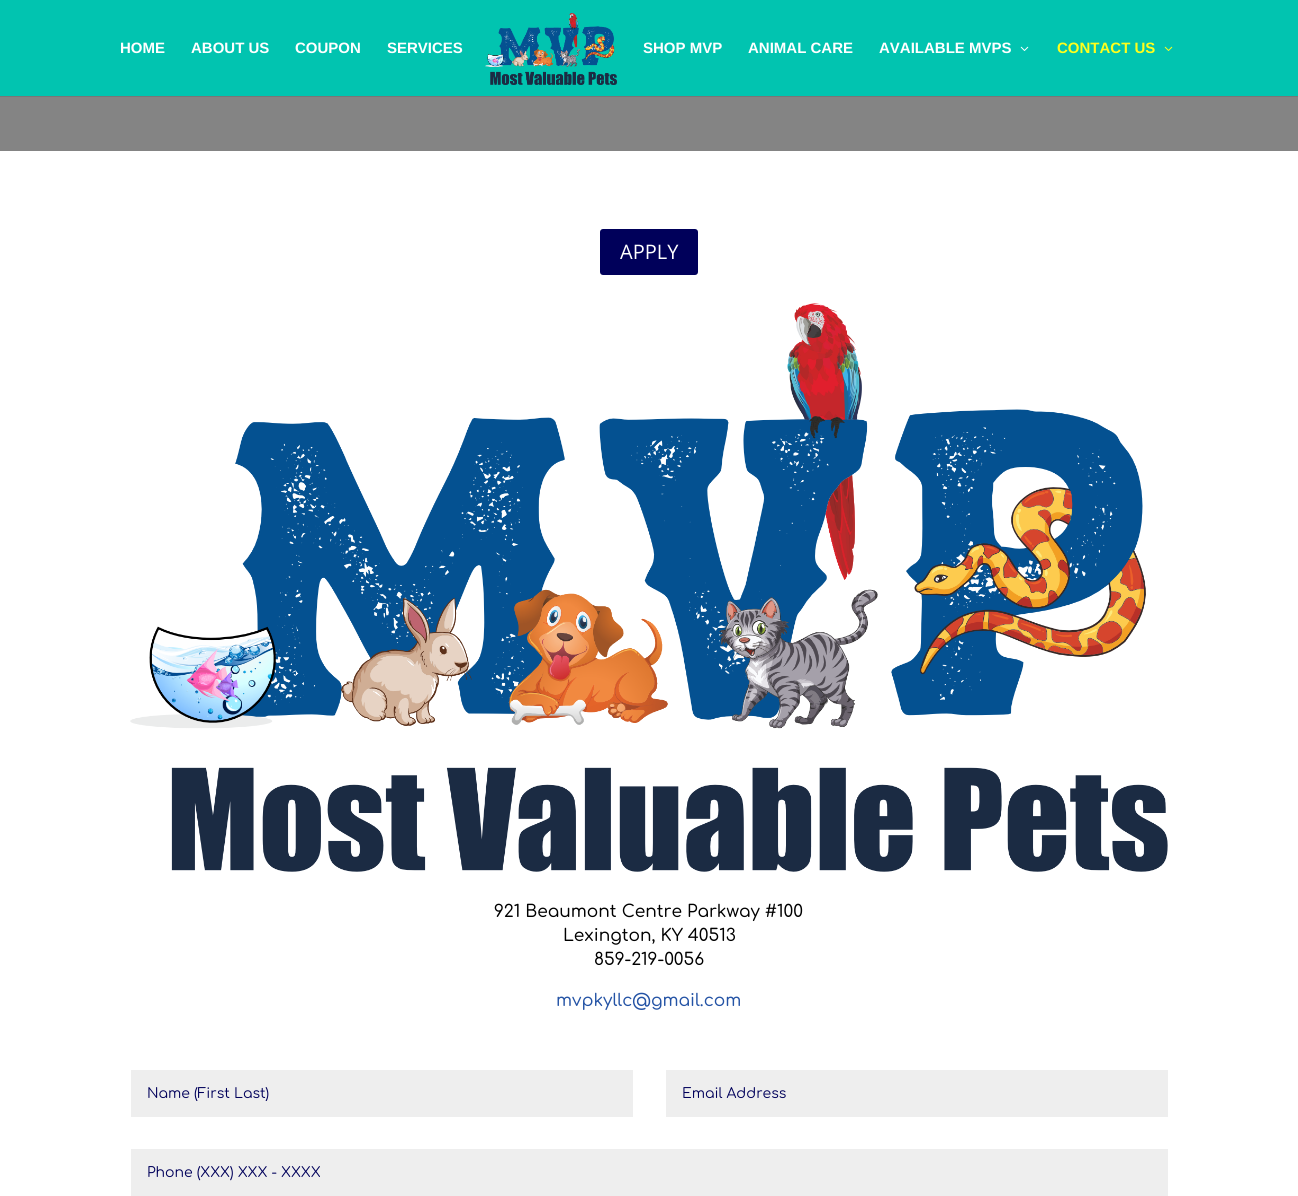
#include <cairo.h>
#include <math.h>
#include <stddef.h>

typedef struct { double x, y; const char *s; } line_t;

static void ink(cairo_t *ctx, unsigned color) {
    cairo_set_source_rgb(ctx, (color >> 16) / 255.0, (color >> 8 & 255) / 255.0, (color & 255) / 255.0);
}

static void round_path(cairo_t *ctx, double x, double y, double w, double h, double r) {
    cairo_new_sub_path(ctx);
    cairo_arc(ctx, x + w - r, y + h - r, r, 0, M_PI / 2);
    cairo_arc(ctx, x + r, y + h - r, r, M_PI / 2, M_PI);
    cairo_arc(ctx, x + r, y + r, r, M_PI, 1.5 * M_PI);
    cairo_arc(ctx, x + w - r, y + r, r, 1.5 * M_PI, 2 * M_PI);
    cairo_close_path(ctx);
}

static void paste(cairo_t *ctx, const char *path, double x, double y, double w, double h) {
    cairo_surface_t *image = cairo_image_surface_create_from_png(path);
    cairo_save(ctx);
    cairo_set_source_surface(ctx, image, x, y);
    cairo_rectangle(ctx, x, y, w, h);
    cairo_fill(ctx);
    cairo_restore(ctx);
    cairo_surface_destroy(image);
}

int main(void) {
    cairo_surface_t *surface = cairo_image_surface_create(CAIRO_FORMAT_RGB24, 1298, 1196);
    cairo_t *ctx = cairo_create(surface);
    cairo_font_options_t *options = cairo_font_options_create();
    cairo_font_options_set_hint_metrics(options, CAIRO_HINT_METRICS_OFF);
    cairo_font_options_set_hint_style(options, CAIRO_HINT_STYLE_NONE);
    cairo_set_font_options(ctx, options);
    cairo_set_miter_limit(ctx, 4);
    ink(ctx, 0x848484);
    cairo_paint(ctx);
    ink(ctx, 0x777777);
    cairo_rectangle(ctx, 0, 96, 1298, 1);
    cairo_fill(ctx);
    ink(ctx, 0x01C4B0);
    cairo_rectangle(ctx, 0, 0, 1298, 96);
    cairo_fill(ctx);
    cairo_select_font_face(ctx, "Liberation Sans", CAIRO_FONT_SLANT_NORMAL, CAIRO_FONT_WEIGHT_BOLD);
    cairo_set_font_size(ctx, 15);
    ink(ctx, 0xFFFFFF);
    {
        static const line_t items[] = {
            {120, 53, "HOME"},
            {191, 53, "ABOUT US"},
            {295, 53, "COUPON"},
            {387, 53, "SERVICES"},
        };
        for (size_t i = 0; i < sizeof items / sizeof *items; i++) {
            cairo_move_to(ctx, items[i].x, items[i].y);
            cairo_show_text(ctx, items[i].s);
        }
    }
    paste(ctx, "media/1.png", 485, 13, 132, 72);
    {
        static const line_t items[] = {
            {643, 53, "SHOP MVP"},
            {748, 53, "ANIMAL CARE"},
            {879, 53, "AVAILABLE MVPS"},
        };
        for (size_t i = 0; i < sizeof items / sizeof *items; i++) {
            cairo_move_to(ctx, items[i].x, items[i].y);
            cairo_show_text(ctx, items[i].s);
        }
    }
    paste(ctx, "media/2.png", 1020, 46, 9, 5);
    ink(ctx, 0xFFFF1B);
    cairo_move_to(ctx, 1057, 53);
    cairo_show_text(ctx, "CONTACT US");
    paste(ctx, "media/3.png", 1164, 46, 9, 5);
    ink(ctx, 0xFFFFFF);
    cairo_rectangle(ctx, 0, 151, 1298, 1045);
    cairo_fill(ctx);
    ink(ctx, 0x00005A);
    round_path(ctx, 600, 229, 98, 46, 3);
    cairo_fill(ctx);
    cairo_select_font_face(ctx, "Open Sans", CAIRO_FONT_SLANT_NORMAL, CAIRO_FONT_WEIGHT_NORMAL);
    cairo_set_font_size(ctx, 20);
    ink(ctx, 0xFFFFFF);
    cairo_move_to(ctx, 620, 259);
    cairo_show_text(ctx, "APPLY");
    paste(ctx, "media/4.png", 130, 303, 1038, 569);
    cairo_select_font_face(ctx, "Comfortaa Medium", CAIRO_FONT_SLANT_NORMAL, CAIRO_FONT_WEIGHT_NORMAL);
    cairo_set_font_size(ctx, 17);
    ink(ctx, 0x000000);
    {
        static const line_t items[] = {
            {494, 917, "921 Beaumont Centre Parkway #100"},
            {563, 941, "Lexington, KY 40513"},
            {594, 965, "859-219-0056"},
        };
        for (size_t i = 0; i < sizeof items / sizeof *items; i++) {
            cairo_move_to(ctx, items[i].x, items[i].y);
            cairo_show_text(ctx, items[i].s);
        }
    }
    ink(ctx, 0x2453A5);
    cairo_move_to(ctx, 556, 1006);
    cairo_show_text(ctx, "mvpkyllc@gmail.com");
    ink(ctx, 0xEEEEEE);
    cairo_rectangle(ctx, 131, 1070, 502, 47);
    cairo_fill(ctx);
    cairo_save(ctx);
    cairo_rectangle(ctx, 147, 1086, 470, 15);
    cairo_clip(ctx);
    cairo_select_font_face(ctx, "Comfortaa", CAIRO_FONT_SLANT_NORMAL, CAIRO_FONT_WEIGHT_NORMAL);
    cairo_set_font_size(ctx, 14);
    ink(ctx, 0x00005A);
    cairo_move_to(ctx, 147, 1098);
    cairo_show_text(ctx, "Name (First Last)");
    cairo_restore(ctx);
    cairo_rectangle(ctx, 666, 1070, 502, 47);
    cairo_fill(ctx);
    cairo_select_font_face(ctx, "Comfortaa", CAIRO_FONT_SLANT_NORMAL, CAIRO_FONT_WEIGHT_NORMAL);
    cairo_set_font_size(ctx, 14);
    ink(ctx, 0x00005A);
    cairo_move_to(ctx, 682, 1098);
    cairo_show_text(ctx, "Email Address");
    ink(ctx, 0xEEEEEE);
    cairo_rectangle(ctx, 131, 1149, 1037, 47);
    cairo_fill(ctx);
    ink(ctx, 0x00005A);
    cairo_move_to(ctx, 147, 1177);
    cairo_show_text(ctx, "Phone (XXX) XXX - XXXX");
    cairo_surface_write_to_png(surface, "image.png");
    cairo_font_options_destroy(options);
    cairo_destroy(ctx);
    cairo_surface_destroy(surface);
    return 0;
}
